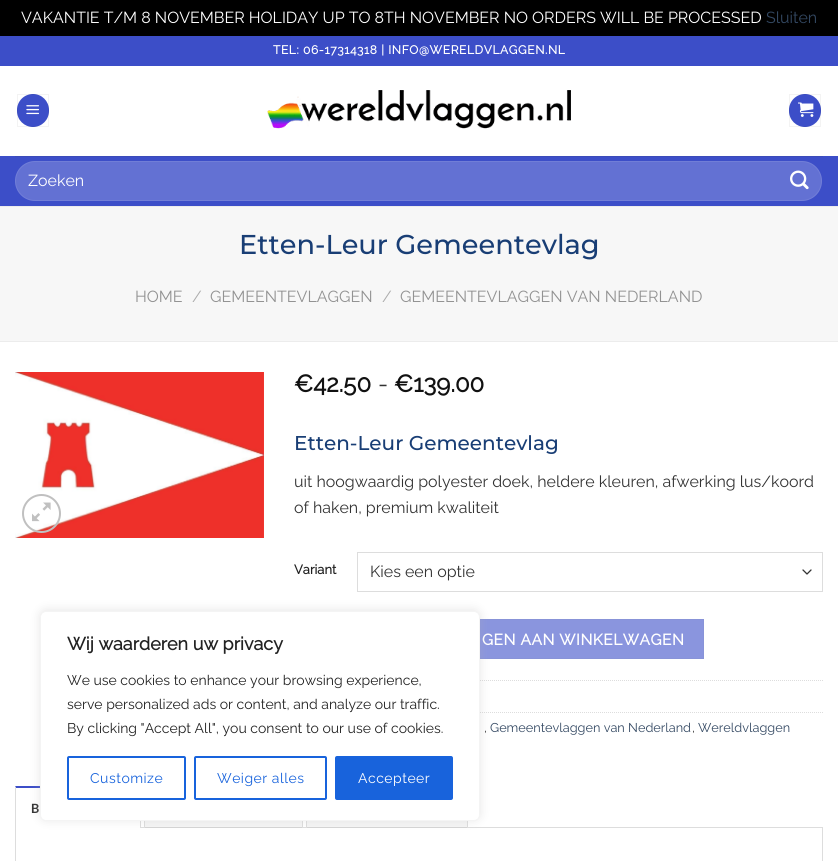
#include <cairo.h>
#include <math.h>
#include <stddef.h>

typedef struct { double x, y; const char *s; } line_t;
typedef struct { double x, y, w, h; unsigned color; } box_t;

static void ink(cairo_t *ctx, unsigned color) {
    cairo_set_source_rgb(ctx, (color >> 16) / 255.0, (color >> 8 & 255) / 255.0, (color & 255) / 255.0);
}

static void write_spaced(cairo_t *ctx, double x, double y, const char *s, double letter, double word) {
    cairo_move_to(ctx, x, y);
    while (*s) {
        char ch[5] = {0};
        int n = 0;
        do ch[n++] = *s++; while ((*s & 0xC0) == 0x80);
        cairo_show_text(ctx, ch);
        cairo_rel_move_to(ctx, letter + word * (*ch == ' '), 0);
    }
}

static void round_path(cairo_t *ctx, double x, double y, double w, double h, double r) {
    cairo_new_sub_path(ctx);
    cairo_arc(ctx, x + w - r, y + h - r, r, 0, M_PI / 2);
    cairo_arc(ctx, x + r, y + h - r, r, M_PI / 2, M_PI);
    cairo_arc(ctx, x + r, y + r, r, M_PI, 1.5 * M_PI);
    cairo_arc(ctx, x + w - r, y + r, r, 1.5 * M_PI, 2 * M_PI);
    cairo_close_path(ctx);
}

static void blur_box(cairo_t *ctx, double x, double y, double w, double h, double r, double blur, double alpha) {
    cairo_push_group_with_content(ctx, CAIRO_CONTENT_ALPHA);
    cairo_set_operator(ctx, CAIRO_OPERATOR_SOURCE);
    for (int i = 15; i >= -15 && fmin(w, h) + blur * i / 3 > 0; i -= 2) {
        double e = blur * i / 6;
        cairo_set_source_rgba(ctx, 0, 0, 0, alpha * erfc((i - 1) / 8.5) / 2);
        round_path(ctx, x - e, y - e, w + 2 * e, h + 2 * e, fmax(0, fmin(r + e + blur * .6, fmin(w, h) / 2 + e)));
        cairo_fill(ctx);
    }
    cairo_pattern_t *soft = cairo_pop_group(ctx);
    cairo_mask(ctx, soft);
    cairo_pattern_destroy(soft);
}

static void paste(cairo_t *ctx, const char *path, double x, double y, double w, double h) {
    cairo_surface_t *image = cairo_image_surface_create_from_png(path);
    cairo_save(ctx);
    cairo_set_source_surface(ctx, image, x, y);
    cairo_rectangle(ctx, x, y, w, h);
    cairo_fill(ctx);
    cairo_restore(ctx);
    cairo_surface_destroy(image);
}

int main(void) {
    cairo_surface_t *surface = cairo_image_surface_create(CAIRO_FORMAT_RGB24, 838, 861);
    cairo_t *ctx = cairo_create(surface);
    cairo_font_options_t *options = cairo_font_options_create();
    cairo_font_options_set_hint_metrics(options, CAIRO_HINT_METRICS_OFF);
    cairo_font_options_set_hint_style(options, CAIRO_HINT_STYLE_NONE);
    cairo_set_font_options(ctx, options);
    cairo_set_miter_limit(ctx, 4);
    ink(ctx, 0x000000);
    cairo_paint(ctx);
    cairo_select_font_face(ctx, "Raleway Thin", CAIRO_FONT_SLANT_NORMAL, CAIRO_FONT_WEIGHT_NORMAL);
    cairo_set_font_size(ctx, 16);
    ink(ctx, 0xFFFFFF);
    cairo_move_to(ctx, 21, 23);
    cairo_show_text(ctx, "VAKANTIE T/M 8 NOVEMBER HOLIDAY UP TO 8TH NOVEMBER NO ORDERS WILL BE PROCESSED");
    ink(ctx, 0x334862);
    cairo_move_to(ctx, 766, 23);
    cairo_show_text(ctx, "Sluiten");
    ink(ctx, 0xFFFFFF);
    cairo_rectangle(ctx, 0, 66, 838, 795);
    cairo_fill(ctx);
    ink(ctx, 0x3C4EC8);
    cairo_rectangle(ctx, 0, 36, 838, 30);
    cairo_fill(ctx);
    cairo_select_font_face(ctx, "Raleway", CAIRO_FONT_SLANT_NORMAL, CAIRO_FONT_WEIGHT_BOLD);
    cairo_set_font_size(ctx, 12);
    ink(ctx, 0xFFFFFF);
    write_spaced(ctx, 273, 54, "TEL: 06-17314318 | INFO@WERELDVLAGGEN.NL", 0.6, 0);
    ink(ctx, 0x3C4EC8);
    round_path(ctx, 17, 94, 32, 33, 16);
    cairo_fill(ctx);
    cairo_rectangle(ctx, 17.5, 94.5, 31, 32);
    cairo_set_source_rgba(ctx, 0, 0, 0, 0.05);
    cairo_set_line_width(ctx, 1);
    cairo_stroke(ctx);
    paste(ctx, "media/1.png", 26, 105, 13, 10);
    paste(ctx, "media/2.png", 267, 90, 304, 39);
    ink(ctx, 0x3C4EC8);
    round_path(ctx, 789, 94, 32, 33, 16);
    cairo_fill(ctx);
    cairo_rectangle(ctx, 789.5, 94.5, 31, 32);
    cairo_set_source_rgba(ctx, 0, 0, 0, 0.05);
    cairo_stroke(ctx);
    paste(ctx, "media/3.png", 798, 102, 16, 15);
    ink(ctx, 0x3C4EC8);
    cairo_rectangle(ctx, 0, 156, 838, 50);
    cairo_fill(ctx);
    ink(ctx, 0x3B4BB9);
    cairo_rectangle(ctx, 15, 156, 808, 1);
    cairo_fill(ctx);
    ink(ctx, 0x6371D3);
    round_path(ctx, 15, 161, 807, 40, 20);
    cairo_fill(ctx);
    round_path(ctx, 15.5, 161.5, 806, 39, 19.5);
    cairo_set_source_rgba(ctx, 1, 1, 1, 0.09);
    cairo_stroke(ctx);
    cairo_select_font_face(ctx, "Raleway Thin", CAIRO_FONT_SLANT_NORMAL, CAIRO_FONT_WEIGHT_NORMAL);
    cairo_set_font_size(ctx, 16);
    ink(ctx, 0xFFFFFF);
    cairo_move_to(ctx, 28, 186);
    cairo_show_text(ctx, "Zoeken");
    paste(ctx, "media/4.png", 790, 170, 19, 20);
    {
        static const box_t items[] = {
            {0, 207, 838, 134, 0xF7F7F7},
            {0, 206, 838, 1, 0xECECEC},
            {0, 341, 838, 1, 0xECECEC},
        };
        for (size_t i = 0; i < sizeof items / sizeof *items; i++) {
            ink(ctx, items[i].color);
            cairo_rectangle(ctx, items[i].x, items[i].y, items[i].w, items[i].h);
            cairo_fill(ctx);
        }
    }
    cairo_select_font_face(ctx, "Montserrat Thin", CAIRO_FONT_SLANT_NORMAL, CAIRO_FONT_WEIGHT_NORMAL);
    cairo_set_font_size(ctx, 27.25);
    ink(ctx, 0x193E75);
    cairo_move_to(ctx, 239, 254);
    cairo_show_text(ctx, "Etten-Leur Gemeentevlag");
    cairo_select_font_face(ctx, "Raleway Thin", CAIRO_FONT_SLANT_NORMAL, CAIRO_FONT_WEIGHT_NORMAL);
    cairo_set_font_size(ctx, 16);
    ink(ctx, 0x929292);
    cairo_move_to(ctx, 135, 302);
    cairo_show_text(ctx, "HOME");
    ink(ctx, 0xACACAC);
    cairo_move_to(ctx, 192, 302);
    cairo_show_text(ctx, "/");
    ink(ctx, 0x929292);
    cairo_move_to(ctx, 210, 302);
    cairo_show_text(ctx, "GEMEENTEVLAGGEN");
    ink(ctx, 0xACACAC);
    cairo_move_to(ctx, 382, 302);
    cairo_show_text(ctx, "/");
    ink(ctx, 0x929292);
    cairo_move_to(ctx, 400, 302);
    cairo_show_text(ctx, "GEMEENTEVLAGGEN VAN NEDERLAND");
    paste(ctx, "media/5.png", 15, 372, 249, 166);
    cairo_arc(ctx, 41.5, 513.5, 18.5, 0, 2 * M_PI);
    ink(ctx, 0xC0C0C0);
    cairo_set_line_width(ctx, 2);
    cairo_stroke(ctx);
    paste(ctx, "media/6.png", 32, 502, 19, 20);
    cairo_select_font_face(ctx, "Raleway", CAIRO_FONT_SLANT_NORMAL, CAIRO_FONT_WEIGHT_BOLD);
    cairo_set_font_size(ctx, 24);
    ink(ctx, 0x111111);
    cairo_move_to(ctx, 294, 392);
    cairo_show_text(ctx, "€42.50");
    cairo_select_font_face(ctx, "Raleway Thin", CAIRO_FONT_SLANT_NORMAL, CAIRO_FONT_WEIGHT_NORMAL);
    ink(ctx, 0x333333);
    cairo_move_to(ctx, 378, 392);
    cairo_show_text(ctx, "-");
    cairo_select_font_face(ctx, "Raleway", CAIRO_FONT_SLANT_NORMAL, CAIRO_FONT_WEIGHT_BOLD);
    ink(ctx, 0x111111);
    cairo_move_to(ctx, 394, 392);
    cairo_show_text(ctx, "€139.00");
    cairo_select_font_face(ctx, "Montserrat Thin", CAIRO_FONT_SLANT_NORMAL, CAIRO_FONT_WEIGHT_NORMAL);
    cairo_set_font_size(ctx, 20);
    ink(ctx, 0x193E75);
    cairo_move_to(ctx, 294, 450);
    cairo_show_text(ctx, "Etten-Leur Gemeentevlag");
    cairo_select_font_face(ctx, "Raleway Thin", CAIRO_FONT_SLANT_NORMAL, CAIRO_FONT_WEIGHT_NORMAL);
    cairo_set_font_size(ctx, 16);
    ink(ctx, 0x333333);
    cairo_move_to(ctx, 294, 487);
    cairo_show_text(ctx, "uit hoogwaardig polyester doek, heldere kleuren, afwerking lus/koord");
    cairo_move_to(ctx, 294, 513);
    cairo_show_text(ctx, "of haken, premium kwaliteit");
    cairo_select_font_face(ctx, "Raleway", CAIRO_FONT_SLANT_NORMAL, CAIRO_FONT_WEIGHT_BOLD);
    cairo_set_font_size(ctx, 13);
    ink(ctx, 0x222222);
    cairo_move_to(ctx, 294, 574);
    cairo_show_text(ctx, "Variant");
    cairo_new_path(ctx);
    cairo_move_to(ctx, 803, 570);
    cairo_line_to(ctx, 807, 574);
    cairo_line_to(ctx, 811, 570);
    ink(ctx, 0x333333);
    cairo_set_line_width(ctx, 1.3);
    cairo_set_line_cap(ctx, CAIRO_LINE_CAP_ROUND);
    cairo_set_line_join(ctx, CAIRO_LINE_JOIN_ROUND);
    cairo_stroke(ctx);
    cairo_rectangle(ctx, 357.5, 552.5, 465, 39);
    ink(ctx, 0xDDDDDD);
    cairo_set_line_width(ctx, 1);
    cairo_set_line_cap(ctx, CAIRO_LINE_CAP_BUTT);
    cairo_set_line_join(ctx, CAIRO_LINE_JOIN_MITER);
    cairo_stroke(ctx);
    cairo_select_font_face(ctx, "Raleway Thin", CAIRO_FONT_SLANT_NORMAL, CAIRO_FONT_WEIGHT_NORMAL);
    cairo_set_font_size(ctx, 16);
    ink(ctx, 0x333333);
    cairo_move_to(ctx, 370, 577);
    cairo_show_text(ctx, "Kies een optie");
    ink(ctx, 0x8A95DE);
    cairo_rectangle(ctx, 480, 620, 223, 38);
    cairo_fill(ctx);
    cairo_rectangle(ctx, 397.5, 619.5, 306, 39);
    ink(ctx, 0x8893D8);
    cairo_stroke(ctx);
    cairo_select_font_face(ctx, "Raleway", CAIRO_FONT_SLANT_NORMAL, CAIRO_FONT_WEIGHT_BOLD);
    cairo_set_font_size(ctx, 15.5);
    ink(ctx, 0xFFFFFF);
    write_spaced(ctx, 482, 645, "GEN AAN WINKELWAGEN", 0.5, 0);
    cairo_new_path(ctx);
    cairo_move_to(ctx, 294, 680.5);
    cairo_line_to(ctx, 823, 680.5);
    ink(ctx, 0xDDDDDD);
    cairo_set_dash(ctx, (double[]){1, 1}, 2, 0);
    cairo_stroke(ctx);
    cairo_new_path(ctx);
    cairo_move_to(ctx, 294, 712.5);
    cairo_line_to(ctx, 823, 712.5);
    cairo_stroke(ctx);
    cairo_select_font_face(ctx, "Raleway Thin", CAIRO_FONT_SLANT_NORMAL, CAIRO_FONT_WEIGHT_NORMAL);
    cairo_set_font_size(ctx, 12.75);
    ink(ctx, 0x333333);
    cairo_move_to(ctx, 484, 732);
    cairo_show_text(ctx, ",");
    ink(ctx, 0x334862);
    cairo_move_to(ctx, 490, 732);
    cairo_show_text(ctx, "Gemeentevlaggen van Nederland");
    ink(ctx, 0x333333);
    cairo_move_to(ctx, 692, 732);
    cairo_show_text(ctx, ",");
    ink(ctx, 0x334862);
    cairo_move_to(ctx, 698, 732);
    cairo_show_text(ctx, "Wereldvlaggen");
    cairo_rectangle(ctx, 15.5, 827.5, 807, 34);
    ink(ctx, 0xDDDDDD);
    cairo_set_dash(ctx, NULL, 0, 0);
    cairo_stroke(ctx);
    ink(ctx, 0xFFFFFF);
    cairo_rectangle(ctx, 15, 827, 125, 1);
    cairo_fill(ctx);
    ink(ctx, 0x3C4EC8);
    cairo_new_path(ctx);
    cairo_move_to(ctx, 15, 786);
    cairo_line_to(ctx, 141, 786);
    cairo_line_to(ctx, 140, 788);
    cairo_line_to(ctx, 16, 788);
    cairo_close_path(ctx);
    cairo_fill(ctx);
    ink(ctx, 0xDDDDDD);
    cairo_new_path(ctx);
    cairo_move_to(ctx, 141, 786);
    cairo_line_to(ctx, 141, 828);
    cairo_line_to(ctx, 140, 828);
    cairo_line_to(ctx, 140, 788);
    cairo_close_path(ctx);
    cairo_fill(ctx);
    cairo_new_path(ctx);
    cairo_move_to(ctx, 15, 828);
    cairo_line_to(ctx, 15, 786);
    cairo_line_to(ctx, 16, 788);
    cairo_line_to(ctx, 16, 828);
    cairo_close_path(ctx);
    cairo_fill(ctx);
    cairo_select_font_face(ctx, "Lato", CAIRO_FONT_SLANT_NORMAL, CAIRO_FONT_WEIGHT_BOLD);
    ink(ctx, 0x333333);
    cairo_move_to(ctx, 31, 813);
    cairo_show_text(ctx, "B");
    cairo_set_source_rgba(ctx, 0, 0, 0, 0.04);
    cairo_rectangle(ctx, 145, 821, 157, 7);
    cairo_fill(ctx);
    ink(ctx, 0xDDDDDD);
    cairo_rectangle(ctx, 302, 821, 1, 7);
    cairo_fill(ctx);
    cairo_rectangle(ctx, 144, 821, 1, 7);
    cairo_fill(ctx);
    cairo_set_source_rgba(ctx, 0, 0, 0, 0.04);
    cairo_rectangle(ctx, 307, 821, 160, 7);
    cairo_fill(ctx);
    ink(ctx, 0xDDDDDD);
    cairo_rectangle(ctx, 467, 821, 1, 7);
    cairo_fill(ctx);
    cairo_rectangle(ctx, 306, 821, 1, 7);
    cairo_fill(ctx);
    ink(ctx, 0xACABAB);
    blur_box(ctx, 40, 610, 440, 210, 6, 5, 0.3);
    ink(ctx, 0xFFFFFF);
    round_path(ctx, 40.5, 611.5, 439, 209, 5.5);
    cairo_fill_preserve(ctx);
    ink(ctx, 0xF4F4F4);
    cairo_stroke(ctx);
    cairo_select_font_face(ctx, "Raleway", CAIRO_FONT_SLANT_NORMAL, CAIRO_FONT_WEIGHT_BOLD);
    cairo_set_font_size(ctx, 18);
    ink(ctx, 0x222222);
    cairo_move_to(ctx, 67, 650);
    cairo_show_text(ctx, "Wij waarderen uw privacy");
    cairo_select_font_face(ctx, "Raleway Thin", CAIRO_FONT_SLANT_NORMAL, CAIRO_FONT_WEIGHT_NORMAL);
    cairo_set_font_size(ctx, 14);
    {
        static const line_t items[] = {
            {67, 685, "We use cookies to enhance your browsing experience,"},
            {67, 709, "serve personalized ads or content, and analyze our traffic."},
            {67, 733, "By clicking \"Accept All\", you consent to our use of cookies."},
        };
        for (size_t i = 0; i < sizeof items / sizeof *items; i++) {
            cairo_move_to(ctx, items[i].x, items[i].y);
            cairo_show_text(ctx, items[i].s);
        }
    }
    round_path(ctx, 68, 757, 117, 42, 1);
    ink(ctx, 0x1863DC);
    cairo_set_line_width(ctx, 2);
    cairo_stroke(ctx);
    write_spaced(ctx, 90, 783, "Customize", 0.5, 0);
    round_path(ctx, 195, 757, 131, 42, 1);
    cairo_stroke(ctx);
    write_spaced(ctx, 217, 783, "Weiger alles", 0.5, 0);
    round_path(ctx, 336, 757, 116, 42, 1);
    cairo_fill_preserve(ctx);
    cairo_stroke(ctx);
    ink(ctx, 0xFFFFFF);
    write_spaced(ctx, 358, 783, "Accepteer", 0.5, 0);
    cairo_surface_write_to_png(surface, "image.png");
    cairo_font_options_destroy(options);
    cairo_destroy(ctx);
    cairo_surface_destroy(surface);
    return 0;
}
